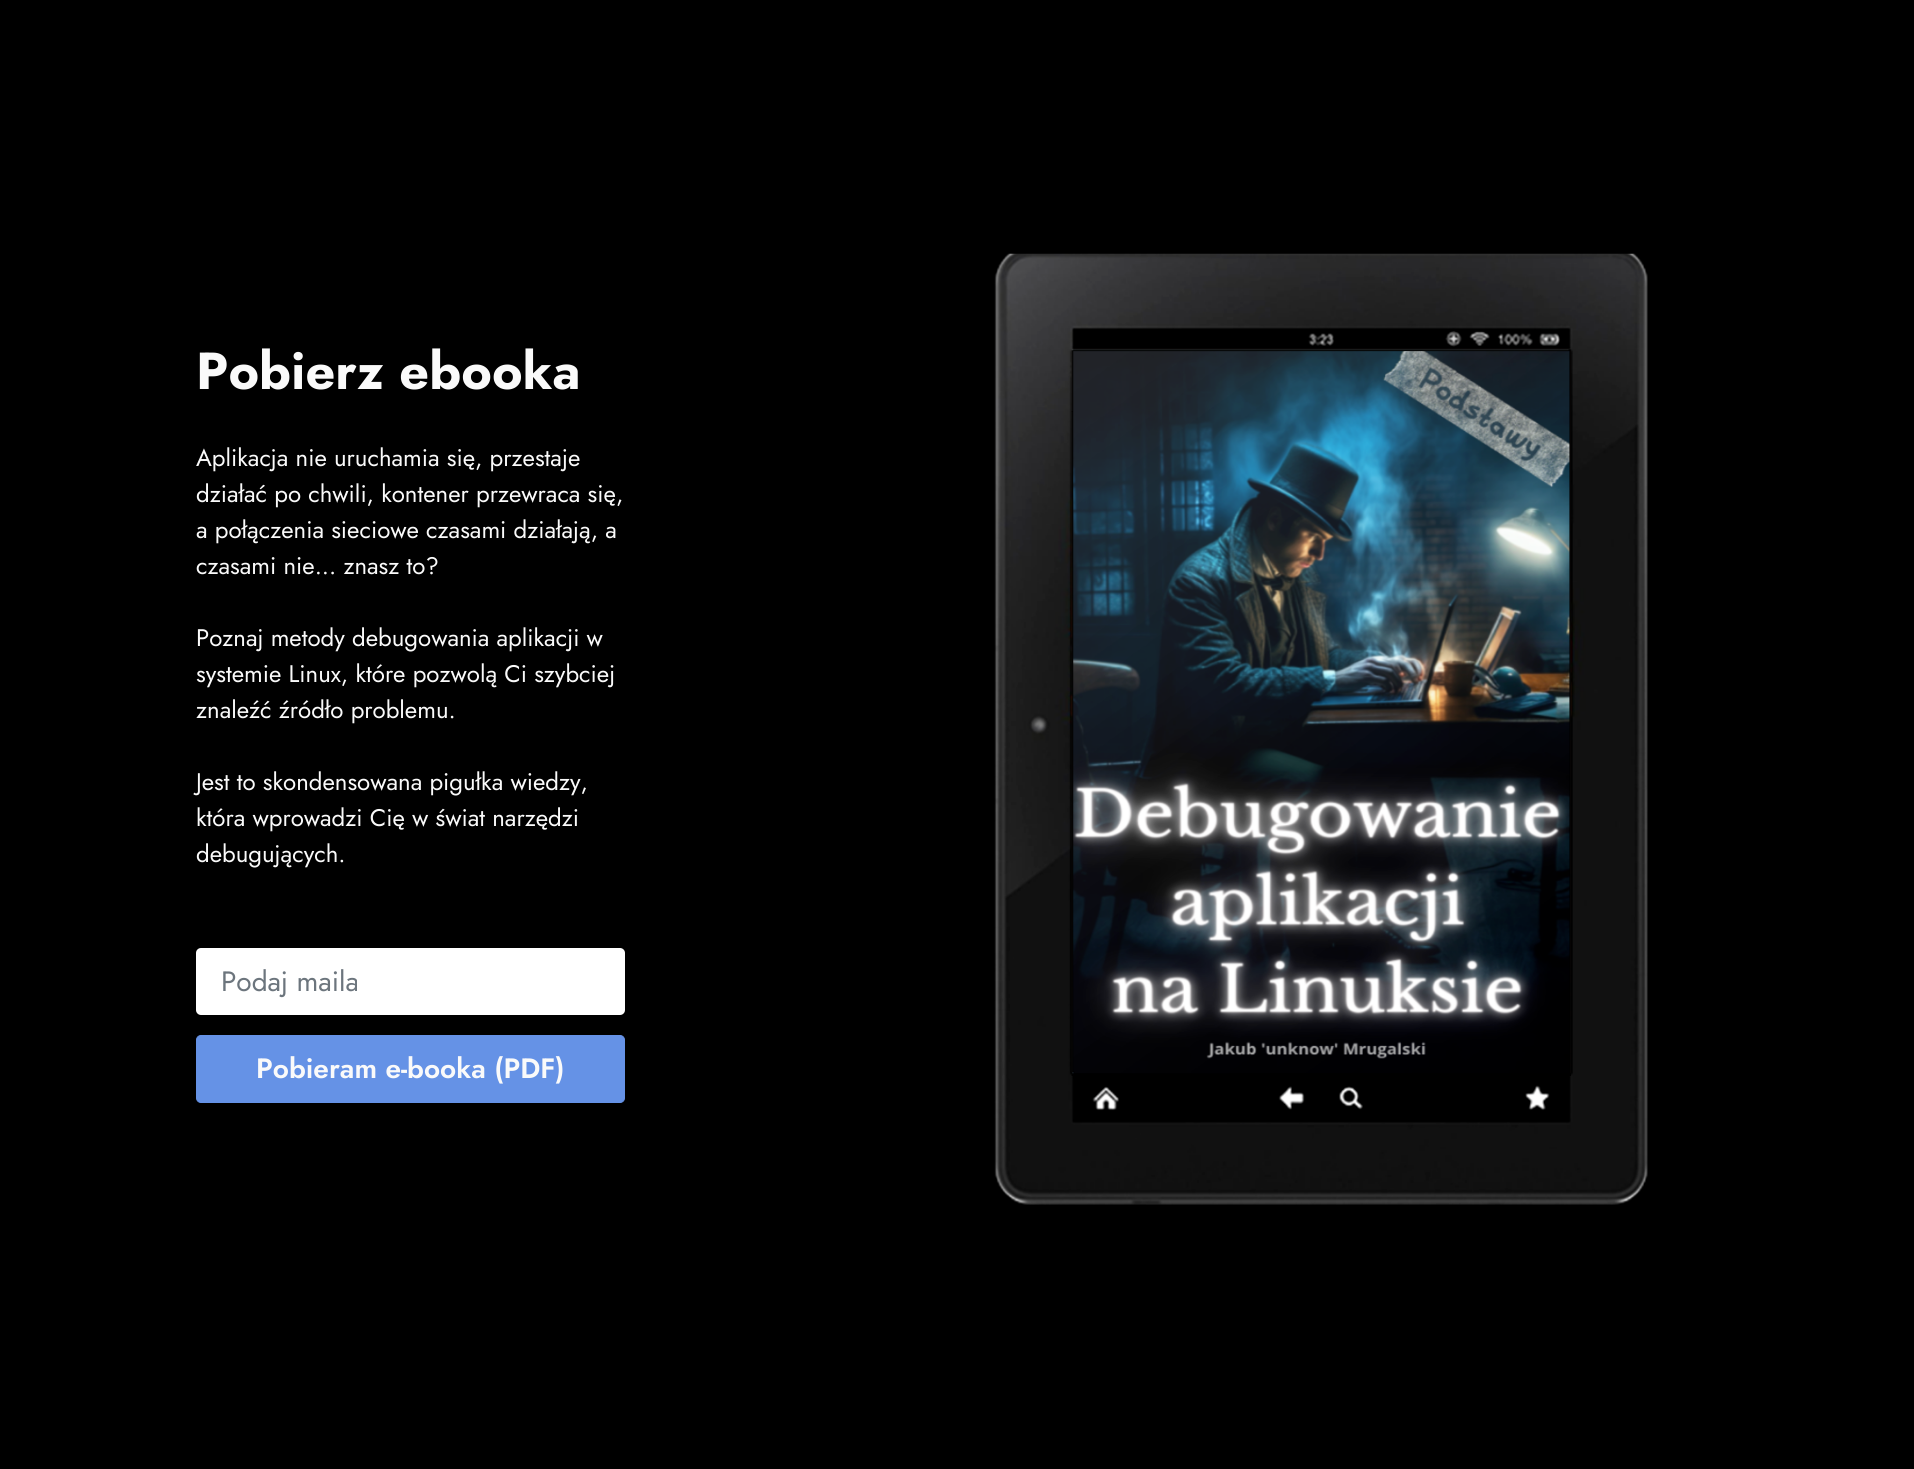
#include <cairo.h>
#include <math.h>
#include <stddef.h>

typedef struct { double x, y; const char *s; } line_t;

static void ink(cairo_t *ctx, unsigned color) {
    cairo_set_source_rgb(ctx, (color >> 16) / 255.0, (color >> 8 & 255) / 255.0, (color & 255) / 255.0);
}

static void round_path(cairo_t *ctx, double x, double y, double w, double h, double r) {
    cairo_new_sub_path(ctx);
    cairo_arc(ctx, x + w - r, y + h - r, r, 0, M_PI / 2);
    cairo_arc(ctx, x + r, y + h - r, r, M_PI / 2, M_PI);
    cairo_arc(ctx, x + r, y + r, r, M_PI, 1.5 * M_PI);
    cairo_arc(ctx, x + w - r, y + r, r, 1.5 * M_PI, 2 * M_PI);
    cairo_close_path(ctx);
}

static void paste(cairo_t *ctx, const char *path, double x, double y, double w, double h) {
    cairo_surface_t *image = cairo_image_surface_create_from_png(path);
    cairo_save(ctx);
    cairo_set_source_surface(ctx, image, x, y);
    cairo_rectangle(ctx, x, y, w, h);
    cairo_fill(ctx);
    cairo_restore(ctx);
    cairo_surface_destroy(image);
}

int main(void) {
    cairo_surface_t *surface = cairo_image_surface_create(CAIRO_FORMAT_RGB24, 1914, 1469);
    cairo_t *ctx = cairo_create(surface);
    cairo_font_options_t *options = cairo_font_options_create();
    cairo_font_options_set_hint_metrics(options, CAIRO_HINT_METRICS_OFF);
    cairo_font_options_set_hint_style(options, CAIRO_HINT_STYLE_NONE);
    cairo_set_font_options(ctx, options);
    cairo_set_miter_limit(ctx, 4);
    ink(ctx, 0x000000);
    cairo_paint(ctx);
    cairo_select_font_face(ctx, "Jost", CAIRO_FONT_SLANT_NORMAL, CAIRO_FONT_WEIGHT_BOLD);
    cairo_set_font_size(ctx, 52);
    ink(ctx, 0xFAFAFA);
    cairo_move_to(ctx, 196, 389);
    cairo_show_text(ctx, "Pobierz ebooka");
    cairo_select_font_face(ctx, "Jost", CAIRO_FONT_SLANT_NORMAL, CAIRO_FONT_WEIGHT_NORMAL);
    cairo_set_font_size(ctx, 24);
    {
        static const line_t items[] = {
            {196, 466, "Aplikacja nie uruchamia się, przestaje"},
            {196, 502, "działać po chwili, kontener przewraca się,"},
            {196, 538, "a połączenia sieciowe czasami działają, a"},
            {196, 574, "czasami nie... znasz to?"},
            {196, 646, "Poznaj metody debugowania aplikacji w"},
            {196, 682, "systemie Linux, które pozwolą Ci szybciej"},
            {196, 718, "znaleźć źródło problemu."},
            {196, 790, "Jest to skondensowana pigułka wiedzy,"},
            {196, 826, "która wprowadzi Cię w świat narzędzi"},
            {196, 862, "debugujących."},
        };
        for (size_t i = 0; i < sizeof items / sizeof *items; i++) {
            cairo_move_to(ctx, items[i].x, items[i].y);
            cairo_show_text(ctx, items[i].s);
        }
    }
    ink(ctx, 0xFFFFFF);
    round_path(ctx, 196, 948, 429, 67, 5);
    cairo_fill(ctx);
    cairo_set_font_size(ctx, 28);
    ink(ctx, 0x6C757D);
    cairo_move_to(ctx, 221, 991);
    cairo_show_text(ctx, "Podaj maila");
    ink(ctx, 0x6592E6);
    round_path(ctx, 196.5, 1035.5, 428, 67, 4.5);
    cairo_fill_preserve(ctx);
    cairo_set_line_width(ctx, 1);
    cairo_stroke(ctx);
    cairo_select_font_face(ctx, "Jost SemiBold", CAIRO_FONT_SLANT_NORMAL, CAIRO_FONT_WEIGHT_NORMAL);
    ink(ctx, 0xFAFAFA);
    cairo_move_to(ctx, 256, 1078);
    cairo_show_text(ctx, "Pobieram e-booka (PDF)");
    paste(ctx, "media/1.png", 994, 253, 654, 952);
    cairo_surface_write_to_png(surface, "image.png");
    cairo_font_options_destroy(options);
    cairo_destroy(ctx);
    cairo_surface_destroy(surface);
    return 0;
}
